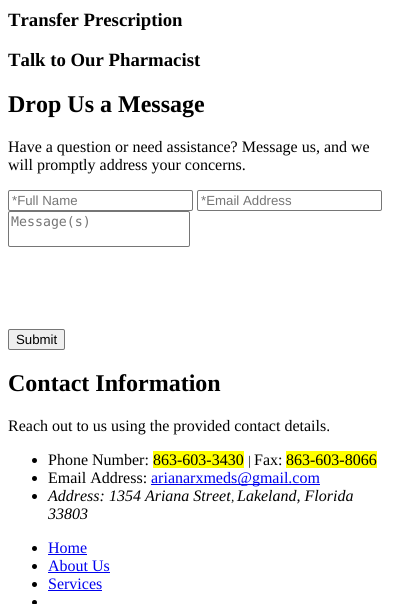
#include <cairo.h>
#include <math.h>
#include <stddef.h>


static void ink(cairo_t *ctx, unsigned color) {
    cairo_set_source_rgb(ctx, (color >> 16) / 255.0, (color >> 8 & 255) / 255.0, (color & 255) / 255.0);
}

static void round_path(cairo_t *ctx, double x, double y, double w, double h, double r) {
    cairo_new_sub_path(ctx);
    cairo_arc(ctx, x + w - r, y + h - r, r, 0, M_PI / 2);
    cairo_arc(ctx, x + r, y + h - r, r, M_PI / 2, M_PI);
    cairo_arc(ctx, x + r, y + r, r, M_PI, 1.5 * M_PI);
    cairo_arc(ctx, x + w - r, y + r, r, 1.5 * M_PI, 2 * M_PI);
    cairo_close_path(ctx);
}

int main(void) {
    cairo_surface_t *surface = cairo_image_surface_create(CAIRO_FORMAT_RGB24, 402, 604);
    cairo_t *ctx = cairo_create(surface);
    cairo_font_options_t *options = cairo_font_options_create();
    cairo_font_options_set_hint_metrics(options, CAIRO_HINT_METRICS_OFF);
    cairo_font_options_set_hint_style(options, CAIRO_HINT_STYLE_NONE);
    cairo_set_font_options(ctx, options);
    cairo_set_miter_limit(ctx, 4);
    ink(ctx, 0xFFFFFF);
    cairo_paint(ctx);
    cairo_select_font_face(ctx, "Liberation Serif", CAIRO_FONT_SLANT_NORMAL, CAIRO_FONT_WEIGHT_BOLD);
    cairo_set_font_size(ctx, 18.75);
    ink(ctx, 0x000000);
    cairo_move_to(ctx, 8, 26);
    cairo_show_text(ctx, "Transfer Prescription");
    cairo_move_to(ctx, 8, 66);
    cairo_show_text(ctx, "Talk to Our Pharmacist");
    cairo_set_font_size(ctx, 24);
    cairo_move_to(ctx, 8, 112);
    cairo_show_text(ctx, "Drop Us a Message");
    cairo_select_font_face(ctx, "Liberation Serif", CAIRO_FONT_SLANT_NORMAL, CAIRO_FONT_WEIGHT_NORMAL);
    cairo_set_font_size(ctx, 16);
    cairo_move_to(ctx, 8, 152);
    cairo_show_text(ctx, "Have a question or need assistance? Message us, and we");
    cairo_move_to(ctx, 8, 170);
    cairo_show_text(ctx, "will promptly address your concerns.");
    round_path(ctx, 8.5, 190.5, 184, 20, 1.5);
    ink(ctx, 0x767676);
    cairo_set_line_width(ctx, 1);
    cairo_stroke(ctx);
    cairo_select_font_face(ctx, "Liberation Sans", CAIRO_FONT_SLANT_NORMAL, CAIRO_FONT_WEIGHT_NORMAL);
    cairo_set_font_size(ctx, 13.25);
    ink(ctx, 0x757575);
    cairo_move_to(ctx, 12, 205);
    cairo_show_text(ctx, "*Full Name");
    round_path(ctx, 197.5, 190.5, 184, 20, 1.5);
    ink(ctx, 0x767676);
    cairo_stroke(ctx);
    ink(ctx, 0x757575);
    cairo_move_to(ctx, 201, 205);
    cairo_show_text(ctx, "*Email Address");
    round_path(ctx, 8.5, 211.5, 181, 35, 1.5);
    ink(ctx, 0x767676);
    cairo_stroke(ctx);
    cairo_select_font_face(ctx, "DejaVu Sans Mono", CAIRO_FONT_SLANT_NORMAL, CAIRO_FONT_WEIGHT_NORMAL);
    ink(ctx, 0x757575);
    cairo_move_to(ctx, 11, 226);
    cairo_show_text(ctx, "Message(s)");
    ink(ctx, 0xEFEFEF);
    round_path(ctx, 8.5, 329.5, 56, 20, 1.5);
    cairo_fill_preserve(ctx);
    ink(ctx, 0x767676);
    cairo_stroke(ctx);
    cairo_select_font_face(ctx, "Liberation Sans", CAIRO_FONT_SLANT_NORMAL, CAIRO_FONT_WEIGHT_NORMAL);
    ink(ctx, 0x000000);
    cairo_move_to(ctx, 16, 344);
    cairo_show_text(ctx, "Submit");
    cairo_select_font_face(ctx, "Liberation Serif", CAIRO_FONT_SLANT_NORMAL, CAIRO_FONT_WEIGHT_BOLD);
    cairo_set_font_size(ctx, 24);
    cairo_move_to(ctx, 8, 391);
    cairo_show_text(ctx, "Contact Information");
    cairo_select_font_face(ctx, "Liberation Serif", CAIRO_FONT_SLANT_NORMAL, CAIRO_FONT_WEIGHT_NORMAL);
    cairo_set_font_size(ctx, 16);
    cairo_move_to(ctx, 8, 431);
    cairo_show_text(ctx, "Reach out to us using the provided contact details.");
    cairo_new_path(ctx);
    cairo_arc(ctx, 34.5, 460.5, 2.5, 0, 2 * M_PI);
    cairo_fill(ctx);
    cairo_move_to(ctx, 48, 465);
    cairo_show_text(ctx, "Phone Number:");
    ink(ctx, 0xFFFF00);
    cairo_rectangle(ctx, 153, 451, 91, 17);
    cairo_fill(ctx);
    ink(ctx, 0x000000);
    cairo_move_to(ctx, 153, 465);
    cairo_show_text(ctx, "863-603-3430");
    cairo_set_font_size(ctx, 13.25);
    cairo_move_to(ctx, 248, 465);
    cairo_show_text(ctx, "|");
    cairo_set_font_size(ctx, 16);
    cairo_move_to(ctx, 254, 465);
    cairo_show_text(ctx, "Fax:");
    ink(ctx, 0xFFFF00);
    cairo_rectangle(ctx, 286, 451, 91, 17);
    cairo_fill(ctx);
    ink(ctx, 0x000000);
    cairo_move_to(ctx, 286, 465);
    cairo_show_text(ctx, "863-603-8066");
    cairo_new_path(ctx);
    cairo_arc(ctx, 34.5, 478.5, 2.5, 0, 2 * M_PI);
    cairo_fill(ctx);
    cairo_move_to(ctx, 48, 483);
    cairo_show_text(ctx, "Email Address:");
    ink(ctx, 0x0000EE);
    cairo_rectangle(ctx, 151, 484, 169, 1);
    cairo_fill(ctx);
    cairo_move_to(ctx, 151, 483);
    cairo_show_text(ctx, "arianarxmeds@gmail.com");
    ink(ctx, 0x000000);
    cairo_new_path(ctx);
    cairo_arc(ctx, 34.5, 496.5, 2.5, 0, 2 * M_PI);
    cairo_fill(ctx);
    cairo_select_font_face(ctx, "Liberation Serif", CAIRO_FONT_SLANT_ITALIC, CAIRO_FONT_WEIGHT_NORMAL);
    cairo_move_to(ctx, 48, 501);
    cairo_show_text(ctx, "Address: 1354 Ariana Street");
    cairo_set_font_size(ctx, 13.25);
    cairo_move_to(ctx, 231, 501);
    cairo_show_text(ctx, ",");
    cairo_set_font_size(ctx, 16);
    cairo_move_to(ctx, 237, 501);
    cairo_show_text(ctx, "Lakeland, Florida");
    cairo_move_to(ctx, 48, 519);
    cairo_show_text(ctx, "33803");
    cairo_new_path(ctx);
    cairo_arc(ctx, 34.5, 548.5, 2.5, 0, 2 * M_PI);
    cairo_fill(ctx);
    cairo_select_font_face(ctx, "Liberation Serif", CAIRO_FONT_SLANT_NORMAL, CAIRO_FONT_WEIGHT_NORMAL);
    ink(ctx, 0x0000EE);
    cairo_move_to(ctx, 48, 553);
    cairo_show_text(ctx, "Home");
    cairo_rectangle(ctx, 48, 554, 39, 1);
    cairo_fill(ctx);
    ink(ctx, 0x000000);
    cairo_arc(ctx, 34.5, 566.5, 2.5, 0, 2 * M_PI);
    cairo_fill(ctx);
    ink(ctx, 0x0000EE);
    cairo_move_to(ctx, 48, 571);
    cairo_show_text(ctx, "About Us");
    cairo_rectangle(ctx, 48, 572, 62, 1);
    cairo_fill(ctx);
    ink(ctx, 0x000000);
    cairo_arc(ctx, 34.5, 584.5, 2.5, 0, 2 * M_PI);
    cairo_fill(ctx);
    ink(ctx, 0x0000EE);
    cairo_move_to(ctx, 48, 589);
    cairo_show_text(ctx, "Services");
    cairo_rectangle(ctx, 48, 590, 54, 1);
    cairo_fill(ctx);
    ink(ctx, 0x000000);
    cairo_arc(ctx, 34.5, 602.5, 2.5, 0, 2 * M_PI);
    cairo_fill(ctx);
    cairo_surface_write_to_png(surface, "image.png");
    cairo_font_options_destroy(options);
    cairo_destroy(ctx);
    cairo_surface_destroy(surface);
    return 0;
}
